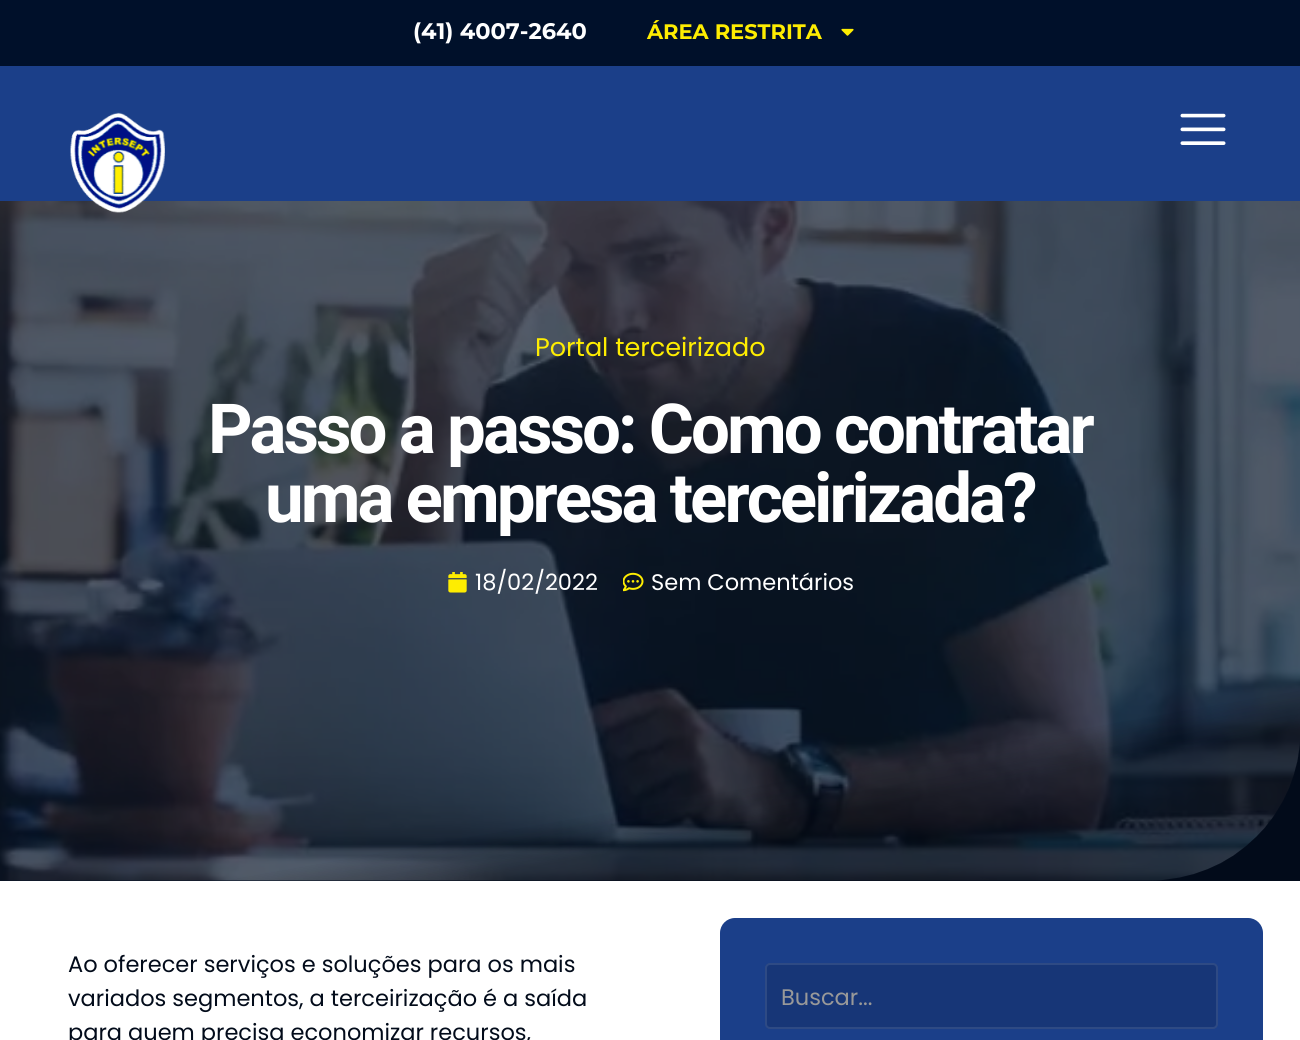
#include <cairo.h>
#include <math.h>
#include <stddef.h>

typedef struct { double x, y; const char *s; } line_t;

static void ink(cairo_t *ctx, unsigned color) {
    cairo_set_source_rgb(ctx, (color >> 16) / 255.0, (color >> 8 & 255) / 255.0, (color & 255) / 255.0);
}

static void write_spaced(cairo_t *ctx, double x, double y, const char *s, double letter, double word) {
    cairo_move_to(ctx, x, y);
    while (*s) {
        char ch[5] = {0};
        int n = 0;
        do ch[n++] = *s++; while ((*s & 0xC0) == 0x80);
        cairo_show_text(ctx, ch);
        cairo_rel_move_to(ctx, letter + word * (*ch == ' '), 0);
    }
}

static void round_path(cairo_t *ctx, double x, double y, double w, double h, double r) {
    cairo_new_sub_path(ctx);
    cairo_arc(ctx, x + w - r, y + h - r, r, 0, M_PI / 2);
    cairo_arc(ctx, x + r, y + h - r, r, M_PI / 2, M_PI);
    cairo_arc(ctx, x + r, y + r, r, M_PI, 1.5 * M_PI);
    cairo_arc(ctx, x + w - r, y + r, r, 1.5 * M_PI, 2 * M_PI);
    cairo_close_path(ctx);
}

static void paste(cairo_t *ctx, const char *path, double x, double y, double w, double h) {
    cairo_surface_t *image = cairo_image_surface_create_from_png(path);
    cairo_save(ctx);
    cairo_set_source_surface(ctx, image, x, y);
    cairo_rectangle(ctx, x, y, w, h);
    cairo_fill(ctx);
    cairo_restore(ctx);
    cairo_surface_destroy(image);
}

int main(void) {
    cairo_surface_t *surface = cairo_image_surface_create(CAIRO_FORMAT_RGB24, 1300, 1040);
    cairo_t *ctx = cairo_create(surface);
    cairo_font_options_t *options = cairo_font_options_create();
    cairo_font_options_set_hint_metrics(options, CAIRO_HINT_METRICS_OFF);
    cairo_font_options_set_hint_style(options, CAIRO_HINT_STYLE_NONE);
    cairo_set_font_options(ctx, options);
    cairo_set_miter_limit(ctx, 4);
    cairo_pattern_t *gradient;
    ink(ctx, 0x020B1A);
    cairo_paint(ctx);
    paste(ctx, "media/4.png", 0, 201, 1300, 680);
    gradient = cairo_pattern_create_linear(741, 979, 559, -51);
    cairo_pattern_add_color_stop_rgba(gradient, 0.14, 0.008, 0.043, 0.102, 0.8);
    cairo_pattern_add_color_stop_rgba(gradient, 0.18, 0.031, 0.082, 0.161, 0.7);
    cairo_set_source(ctx, gradient);
    cairo_pattern_destroy(gradient);
    cairo_new_path(ctx);
    cairo_move_to(ctx, 0, 48);
    cairo_line_to(ctx, 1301, 48);
    cairo_line_to(ctx, 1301, 731);
    cairo_curve_to(ctx, 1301, 814, 1234, 881, 1151, 881);
    cairo_line_to(ctx, 0, 881);
    cairo_close_path(ctx);
    cairo_fill(ctx);
    ink(ctx, 0x00102A);
    cairo_rectangle(ctx, 0, 0, 1300, 66);
    cairo_fill(ctx);
    cairo_select_font_face(ctx, "Montserrat", CAIRO_FONT_SLANT_NORMAL, CAIRO_FONT_WEIGHT_BOLD);
    cairo_set_font_size(ctx, 22.5);
    ink(ctx, 0xFFFFFF);
    cairo_move_to(ctx, 413, 39);
    cairo_show_text(ctx, "(41) 4007-2640");
    cairo_set_font_size(ctx, 21);
    ink(ctx, 0xFEED01);
    cairo_move_to(ctx, 647, 39);
    cairo_show_text(ctx, "ÁREA RESTRITA");
    paste(ctx, "media/1.png", 841, 28, 13, 8);
    ink(ctx, 0x1B3F89);
    cairo_rectangle(ctx, 0, 66, 1300, 135);
    cairo_fill(ctx);
    paste(ctx, "media/2.png", 70, 112, 95, 101);
    paste(ctx, "media/3.png", 1180, 113, 46, 32);
    cairo_select_font_face(ctx, "Poppins", CAIRO_FONT_SLANT_NORMAL, CAIRO_FONT_WEIGHT_NORMAL);
    cairo_set_font_size(ctx, 25.5);
    ink(ctx, 0xFEED01);
    cairo_move_to(ctx, 535, 356);
    cairo_show_text(ctx, "Portal terceirizado");
    cairo_select_font_face(ctx, "Heebo", CAIRO_FONT_SLANT_NORMAL, CAIRO_FONT_WEIGHT_BOLD);
    cairo_set_font_size(ctx, 69);
    ink(ctx, 0xFFFFFF);
    write_spaced(ctx, 208, 453, "Passo a passo: Como contratar", -3, 0);
    write_spaced(ctx, 265, 522, "uma empresa terceirizada?", -3, 0);
    paste(ctx, "media/5.png", 448, 572, 19, 21);
    cairo_select_font_face(ctx, "Poppins", CAIRO_FONT_SLANT_NORMAL, CAIRO_FONT_WEIGHT_NORMAL);
    cairo_set_font_size(ctx, 22.5);
    cairo_move_to(ctx, 475, 590);
    cairo_show_text(ctx, "18/02/2022");
    paste(ctx, "media/6.png", 623, 572, 21, 20);
    cairo_move_to(ctx, 651, 590);
    cairo_show_text(ctx, "Sem Comentários");
    cairo_rectangle(ctx, 0, 881, 1300, 159);
    cairo_fill(ctx);
    ink(ctx, 0x020B1A);
    {
        static const line_t items[] = {
            {68, 972, "Ao oferecer serviços e soluções para os mais"},
            {68, 1006, "variados segmentos, a terceirização é a saída"},
            {68, 1040, "para quem precisa economizar recursos,"},
        };
        for (size_t i = 0; i < sizeof items / sizeof *items; i++) {
            cairo_move_to(ctx, items[i].x, items[i].y);
            cairo_show_text(ctx, items[i].s);
        }
    }
    ink(ctx, 0x1B3F89);
    round_path(ctx, 720, 918, 543, 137, 15);
    cairo_fill(ctx);
    ink(ctx, 0x173677);
    round_path(ctx, 765, 963, 453, 66, 5);
    cairo_fill(ctx);
    round_path(ctx, 766, 964, 451, 64, 4);
    cairo_set_source_rgba(ctx, 1, 1, 1, 0.1);
    cairo_stroke(ctx);
    ink(ctx, 0x999999);
    cairo_move_to(ctx, 781, 1005);
    cairo_show_text(ctx, "Buscar...");
    cairo_surface_write_to_png(surface, "image.png");
    cairo_font_options_destroy(options);
    cairo_destroy(ctx);
    cairo_surface_destroy(surface);
    return 0;
}
